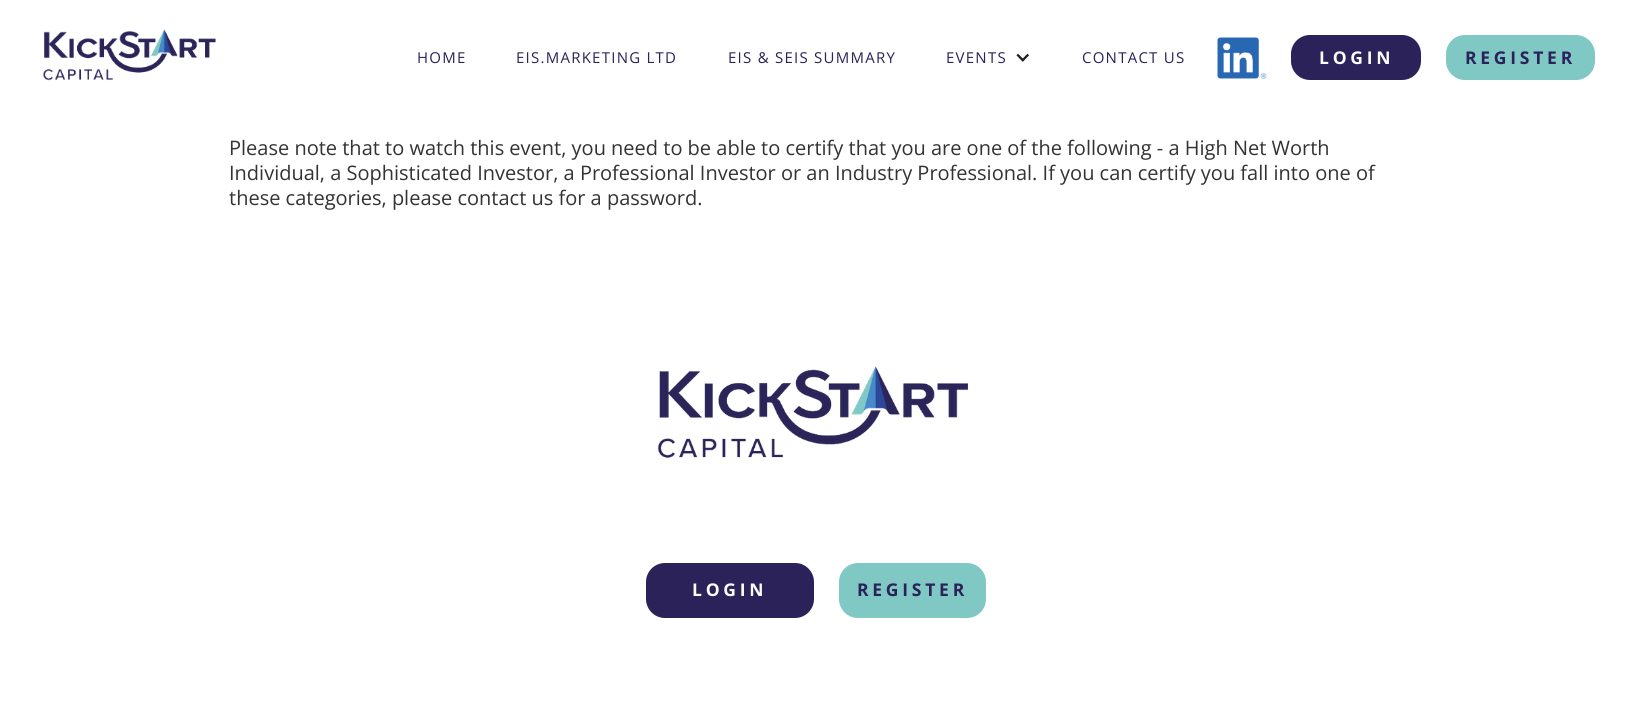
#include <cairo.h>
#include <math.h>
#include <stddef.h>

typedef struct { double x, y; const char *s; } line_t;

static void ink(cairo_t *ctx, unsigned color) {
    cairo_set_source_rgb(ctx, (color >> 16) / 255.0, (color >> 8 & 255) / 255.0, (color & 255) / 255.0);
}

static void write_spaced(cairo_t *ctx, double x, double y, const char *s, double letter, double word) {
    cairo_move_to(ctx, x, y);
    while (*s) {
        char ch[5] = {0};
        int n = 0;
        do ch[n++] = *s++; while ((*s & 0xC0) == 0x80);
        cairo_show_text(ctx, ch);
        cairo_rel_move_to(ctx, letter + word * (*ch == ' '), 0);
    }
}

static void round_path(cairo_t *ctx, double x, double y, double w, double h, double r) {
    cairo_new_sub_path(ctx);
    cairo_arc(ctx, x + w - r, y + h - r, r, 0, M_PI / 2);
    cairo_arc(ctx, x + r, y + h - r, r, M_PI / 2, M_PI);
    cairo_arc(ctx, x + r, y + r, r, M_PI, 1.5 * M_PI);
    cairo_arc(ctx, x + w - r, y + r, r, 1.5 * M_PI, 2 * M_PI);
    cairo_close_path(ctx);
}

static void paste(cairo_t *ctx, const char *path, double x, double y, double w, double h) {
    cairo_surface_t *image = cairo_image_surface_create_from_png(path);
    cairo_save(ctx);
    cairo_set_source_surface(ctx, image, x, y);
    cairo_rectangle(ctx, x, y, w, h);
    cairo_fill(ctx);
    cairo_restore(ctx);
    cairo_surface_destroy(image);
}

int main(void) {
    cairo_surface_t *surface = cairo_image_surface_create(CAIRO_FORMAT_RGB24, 1632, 701);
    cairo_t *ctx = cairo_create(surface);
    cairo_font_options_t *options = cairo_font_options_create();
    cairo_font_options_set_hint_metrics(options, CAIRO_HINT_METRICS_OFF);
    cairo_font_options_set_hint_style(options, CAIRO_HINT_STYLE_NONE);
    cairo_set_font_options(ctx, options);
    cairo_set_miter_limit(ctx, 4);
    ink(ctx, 0xFFFFFF);
    cairo_paint(ctx);
    paste(ctx, "media/1.png", 43, 29, 173, 52);
    cairo_select_font_face(ctx, "Open Sans", CAIRO_FONT_SLANT_NORMAL, CAIRO_FONT_WEIGHT_NORMAL);
    cairo_set_font_size(ctx, 15);
    ink(ctx, 0x2A2259);
    {
        static const line_t items[] = {
            {417, 63, "HOME"},
            {516, 63, "EIS.MARKETING LTD"},
            {728, 63, "EIS & SEIS SUMMARY"},
            {946, 63, "EVENTS"},
        };
        for (size_t i = 0; i < sizeof items / sizeof *items; i++) {
            write_spaced(ctx, items[i].x, items[i].y, items[i].s, 1.25, 0);
        }
    }
    paste(ctx, "media/2.png", 1016, 53, 13, 9);
    write_spaced(ctx, 1082, 63, "CONTACT US", 1.25, 0);
    paste(ctx, "media/3.png", 1217, 37, 50, 42);
    round_path(ctx, 1291, 35, 130, 45, 19);
    cairo_fill(ctx);
    cairo_select_font_face(ctx, "Open Sans", CAIRO_FONT_SLANT_NORMAL, CAIRO_FONT_WEIGHT_BOLD);
    cairo_set_font_size(ctx, 17.5);
    ink(ctx, 0xFDFBFB);
    write_spaced(ctx, 1319, 64, "LOGIN", 3.75, 0);
    ink(ctx, 0x7FC8C4);
    round_path(ctx, 1446, 35, 149, 45, 19);
    cairo_fill(ctx);
    ink(ctx, 0x2A2259);
    write_spaced(ctx, 1465, 64, "REGISTER", 3.75, 0);
    cairo_select_font_face(ctx, "Open Sans", CAIRO_FONT_SLANT_NORMAL, CAIRO_FONT_WEIGHT_NORMAL);
    cairo_set_font_size(ctx, 20);
    ink(ctx, 0x333333);
    {
        static const line_t items[] = {
            {229, 155, "Please note that to watch this event, you need to be able to certify that you are one of the following - a High Net Worth"},
            {229, 180, "Individual, a Sophisticated Investor, a Professional Investor or an Industry Professional. If you can certify you fall into one of"},
            {229, 205, "these categories, please contact us for a password."},
        };
        for (size_t i = 0; i < sizeof items / sizeof *items; i++) {
            cairo_move_to(ctx, items[i].x, items[i].y);
            cairo_show_text(ctx, items[i].s);
        }
    }
    paste(ctx, "media/4.png", 657, 366, 311, 92);
    ink(ctx, 0x2A2259);
    round_path(ctx, 646, 563, 168, 55, 19);
    cairo_fill(ctx);
    cairo_select_font_face(ctx, "Open Sans", CAIRO_FONT_SLANT_NORMAL, CAIRO_FONT_WEIGHT_BOLD);
    cairo_set_font_size(ctx, 17.5);
    ink(ctx, 0xFDFBFB);
    write_spaced(ctx, 692, 596, "LOGIN", 3.75, 0);
    ink(ctx, 0x7FC8C4);
    round_path(ctx, 839, 563, 147, 55, 19);
    cairo_fill(ctx);
    ink(ctx, 0x2A2259);
    write_spaced(ctx, 857, 596, "REGISTER", 3.75, 0);
    cairo_surface_write_to_png(surface, "image.png");
    cairo_font_options_destroy(options);
    cairo_destroy(ctx);
    cairo_surface_destroy(surface);
    return 0;
}
